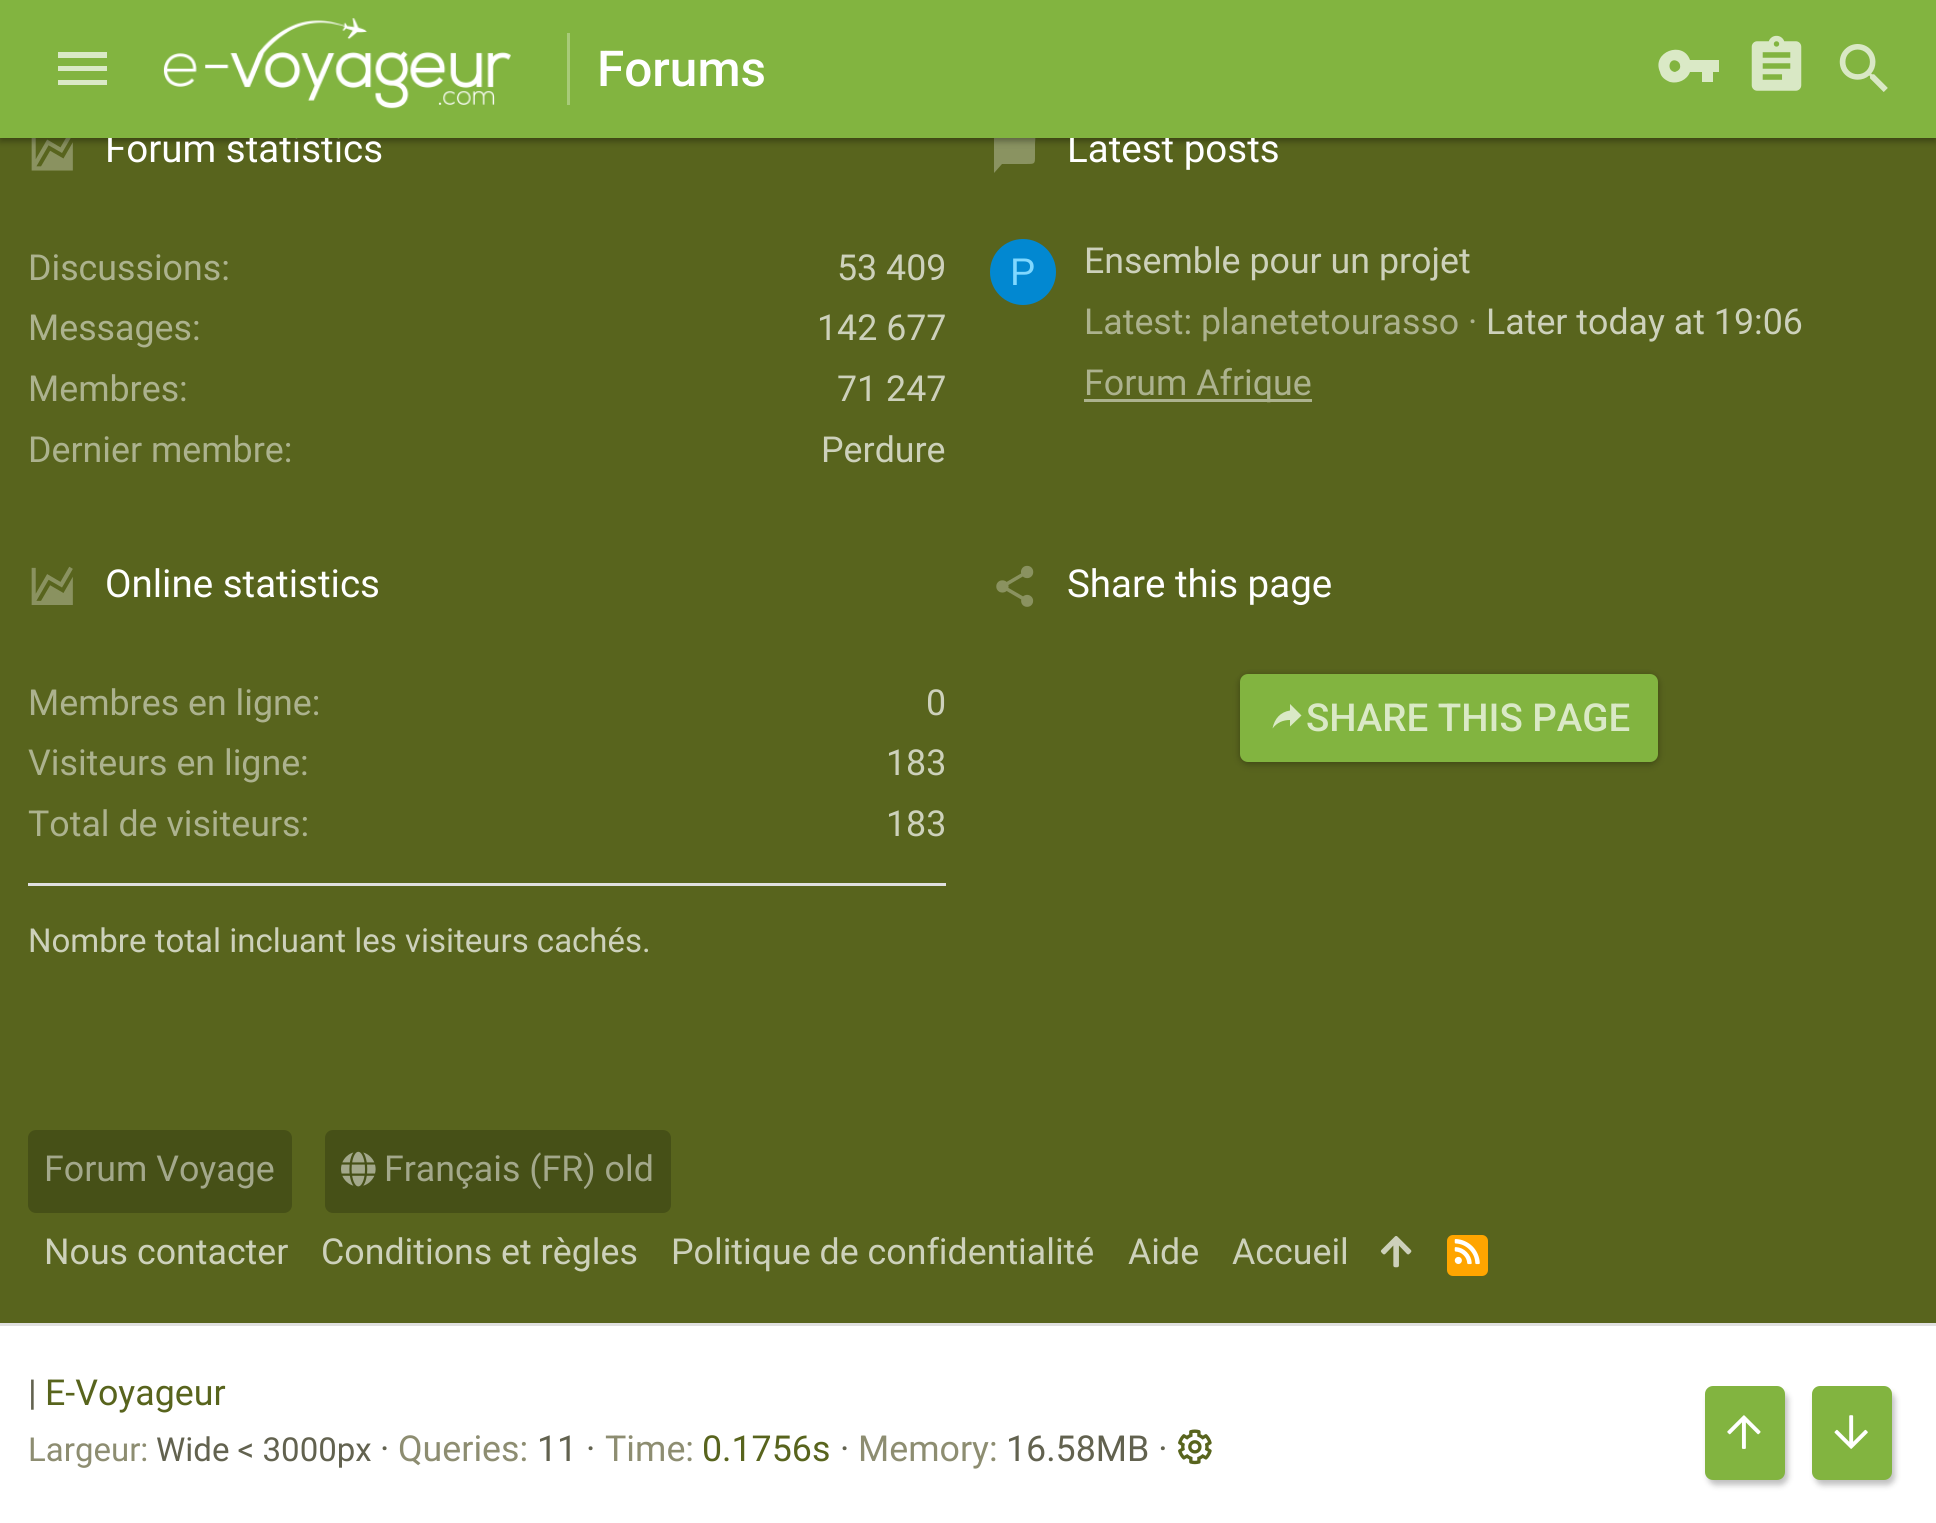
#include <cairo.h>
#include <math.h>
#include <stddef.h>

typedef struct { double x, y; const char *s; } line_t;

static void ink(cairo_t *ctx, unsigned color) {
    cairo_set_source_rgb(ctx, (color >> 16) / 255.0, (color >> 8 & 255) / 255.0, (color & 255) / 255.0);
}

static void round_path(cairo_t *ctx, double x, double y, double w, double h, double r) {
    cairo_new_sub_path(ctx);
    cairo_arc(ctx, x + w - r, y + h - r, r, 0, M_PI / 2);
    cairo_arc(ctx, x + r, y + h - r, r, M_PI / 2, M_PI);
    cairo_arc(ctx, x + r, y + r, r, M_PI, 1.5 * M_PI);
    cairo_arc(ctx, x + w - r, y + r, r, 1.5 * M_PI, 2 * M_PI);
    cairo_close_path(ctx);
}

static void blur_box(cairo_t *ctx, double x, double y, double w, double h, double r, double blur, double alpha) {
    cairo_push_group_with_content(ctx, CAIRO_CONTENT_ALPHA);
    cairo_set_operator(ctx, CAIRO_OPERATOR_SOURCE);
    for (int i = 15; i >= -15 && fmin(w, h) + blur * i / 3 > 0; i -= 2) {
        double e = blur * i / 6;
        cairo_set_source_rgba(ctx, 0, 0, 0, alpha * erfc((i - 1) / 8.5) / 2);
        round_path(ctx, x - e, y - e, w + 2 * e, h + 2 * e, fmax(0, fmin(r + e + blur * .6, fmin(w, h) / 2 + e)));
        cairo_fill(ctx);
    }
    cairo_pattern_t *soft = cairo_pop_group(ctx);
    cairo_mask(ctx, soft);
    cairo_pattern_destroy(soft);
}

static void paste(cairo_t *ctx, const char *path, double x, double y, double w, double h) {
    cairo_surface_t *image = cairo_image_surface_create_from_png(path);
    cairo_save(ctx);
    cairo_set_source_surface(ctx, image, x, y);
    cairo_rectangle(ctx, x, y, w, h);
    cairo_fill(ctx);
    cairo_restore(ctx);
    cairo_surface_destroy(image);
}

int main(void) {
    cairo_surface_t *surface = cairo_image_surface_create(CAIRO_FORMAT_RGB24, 1936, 1523);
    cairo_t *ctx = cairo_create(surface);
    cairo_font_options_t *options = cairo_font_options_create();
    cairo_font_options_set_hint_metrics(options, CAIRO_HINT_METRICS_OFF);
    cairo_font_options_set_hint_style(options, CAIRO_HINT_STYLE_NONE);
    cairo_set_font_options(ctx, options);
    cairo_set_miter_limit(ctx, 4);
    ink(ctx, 0x58641D);
    cairo_paint(ctx);
    paste(ctx, "media/4.png", 31, 138, 42, 33);
    ink(ctx, 0x8A9361);
    cairo_new_path(ctx);
    cairo_move_to(ctx, 1031, 131);
    cairo_line_to(ctx, 1004, 131);
    cairo_curve_to(ctx, 994, 131, 994, 131, 994, 142);
    cairo_line_to(ctx, 994, 173);
    cairo_line_to(ctx, 1002, 164);
    cairo_line_to(ctx, 1026, 164);
    cairo_curve_to(ctx, 1035, 164, 1035, 164, 1035, 156);
    cairo_line_to(ctx, 1035, 144);
    cairo_curve_to(ctx, 1035, 140, 1037, 131, 1031, 131);
    cairo_close_path(ctx);
    cairo_fill(ctx);
    ink(ctx, 0x000000);
    blur_box(ctx, 0, 3, 1936, 137, 0, 4, 0.2);
    blur_box(ctx, 0, 6, 1936, 137, 0, 3, 0.12);
    blur_box(ctx, 0, 0, 1936, 138, 0, 3, 0.14);
    cairo_select_font_face(ctx, "Roboto", CAIRO_FONT_SLANT_NORMAL, CAIRO_FONT_WEIGHT_NORMAL);
    cairo_set_font_size(ctx, 38.5);
    ink(ctx, 0xFFFFFF);
    cairo_move_to(ctx, 105, 162);
    cairo_show_text(ctx, "Forum statistics");
    cairo_move_to(ctx, 1067, 162);
    cairo_show_text(ctx, "Latest posts");
    ink(ctx, 0x82B440);
    cairo_rectangle(ctx, 0, 0, 1936, 138);
    cairo_fill(ctx);
    ink(ctx, 0xDAE9C6);
    cairo_new_path(ctx);
    cairo_move_to(ctx, 58, 52);
    cairo_line_to(ctx, 107, 52);
    cairo_line_to(ctx, 107, 58);
    cairo_line_to(ctx, 58, 58);
    cairo_close_path(ctx);
    cairo_move_to(ctx, 58, 66);
    cairo_line_to(ctx, 107, 66);
    cairo_line_to(ctx, 107, 71);
    cairo_line_to(ctx, 58, 71);
    cairo_close_path(ctx);
    cairo_move_to(ctx, 58, 80);
    cairo_line_to(ctx, 107, 80);
    cairo_line_to(ctx, 107, 85);
    cairo_line_to(ctx, 58, 85);
    cairo_close_path(ctx);
    cairo_fill(ctx);
    paste(ctx, "media/1.png", 163, 18, 348, 91);
    ink(ctx, 0xA8CB79);
    cairo_rectangle(ctx, 567, 33, 3, 72);
    cairo_fill(ctx);
    cairo_select_font_face(ctx, "Roboto Medium", CAIRO_FONT_SLANT_NORMAL, CAIRO_FONT_WEIGHT_NORMAL);
    cairo_set_font_size(ctx, 49.5);
    ink(ctx, 0xFFFFFF);
    cairo_move_to(ctx, 597, 86);
    cairo_show_text(ctx, "Forums");
    ink(ctx, 0xDAE9C6);
    cairo_new_path(ctx);
    cairo_move_to(ctx, 1675, 72);
    cairo_curve_to(ctx, 1666, 71, 1669, 57, 1677, 61);
    cairo_curve_to(ctx, 1679, 62, 1680, 64, 1680, 65);
    cairo_curve_to(ctx, 1681, 69, 1678, 71, 1675, 72);
    cairo_close_path(ctx);
    cairo_move_to(ctx, 1690, 60);
    cairo_curve_to(ctx, 1683, 40, 1651, 52, 1660, 72);
    cairo_curve_to(ctx, 1661, 77, 1665, 80, 1670, 82);
    cairo_curve_to(ctx, 1678, 84, 1687, 80, 1690, 72);
    cairo_line_to(ctx, 1702, 72);
    cairo_line_to(ctx, 1702, 82);
    cairo_line_to(ctx, 1713, 82);
    cairo_line_to(ctx, 1713, 72);
    cairo_line_to(ctx, 1719, 72);
    cairo_line_to(ctx, 1719, 60);
    cairo_close_path(ctx);
    cairo_fill(ctx);
    paste(ctx, "media/2.png", 1751, 35, 51, 56);
    paste(ctx, "media/3.png", 1839, 44, 49, 48);
    cairo_select_font_face(ctx, "Roboto", CAIRO_FONT_SLANT_NORMAL, CAIRO_FONT_WEIGHT_NORMAL);
    cairo_set_font_size(ctx, 35.75);
    ink(ctx, 0xACB28E);
    cairo_move_to(ctx, 28, 280);
    cairo_show_text(ctx, "Discussions:");
    ink(ctx, 0xCDD1BB);
    cairo_move_to(ctx, 837, 280);
    cairo_show_text(ctx, "53 409");
    ink(ctx, 0xACB28E);
    cairo_move_to(ctx, 28, 340);
    cairo_show_text(ctx, "Messages:");
    ink(ctx, 0xCDD1BB);
    cairo_move_to(ctx, 817, 340);
    cairo_show_text(ctx, "142 677");
    ink(ctx, 0xACB28E);
    cairo_move_to(ctx, 28, 401);
    cairo_show_text(ctx, "Membres:");
    ink(ctx, 0xCDD1BB);
    cairo_move_to(ctx, 837, 401);
    cairo_show_text(ctx, "71 247");
    ink(ctx, 0xACB28E);
    cairo_move_to(ctx, 28, 462);
    cairo_show_text(ctx, "Dernier membre:");
    ink(ctx, 0xCDD1BB);
    cairo_move_to(ctx, 821, 462);
    cairo_show_text(ctx, "Perdure");
    ink(ctx, 0x0288D1);
    cairo_new_path(ctx);
    cairo_arc(ctx, 1023, 272, 33, 0, 2 * M_PI);
    cairo_fill(ctx);
    cairo_select_font_face(ctx, "Liberation Sans", CAIRO_FONT_SLANT_NORMAL, CAIRO_FONT_WEIGHT_NORMAL);
    cairo_set_font_size(ctx, 38.5);
    ink(ctx, 0x80D8FF);
    cairo_move_to(ctx, 1010, 285);
    cairo_show_text(ctx, "P");
    cairo_select_font_face(ctx, "Roboto", CAIRO_FONT_SLANT_NORMAL, CAIRO_FONT_WEIGHT_NORMAL);
    cairo_set_font_size(ctx, 35.75);
    ink(ctx, 0xCDD1BB);
    cairo_move_to(ctx, 1084, 273);
    cairo_show_text(ctx, "Ensemble pour un projet");
    ink(ctx, 0xACB28E);
    cairo_move_to(ctx, 1084, 334);
    cairo_show_text(ctx, "Latest: planetetourasso ·");
    ink(ctx, 0xCDD1BB);
    cairo_move_to(ctx, 1486, 334);
    cairo_show_text(ctx, "Later today at 19:06");
    ink(ctx, 0xACB28E);
    cairo_rectangle(ctx, 1084, 399, 228, 3);
    cairo_fill(ctx);
    cairo_move_to(ctx, 1084, 395);
    cairo_show_text(ctx, "Forum Afrique");
    paste(ctx, "media/5.png", 31, 566, 42, 39);
    cairo_set_font_size(ctx, 38.5);
    ink(ctx, 0xFFFFFF);
    cairo_move_to(ctx, 105, 597);
    cairo_show_text(ctx, "Online statistics");
    cairo_set_font_size(ctx, 35.75);
    ink(ctx, 0xACB28E);
    cairo_move_to(ctx, 28, 715);
    cairo_show_text(ctx, "Membres en ligne:");
    ink(ctx, 0xCDD1BB);
    cairo_move_to(ctx, 926, 715);
    cairo_show_text(ctx, "0");
    ink(ctx, 0xACB28E);
    cairo_move_to(ctx, 28, 775);
    cairo_show_text(ctx, "Visiteurs en ligne:");
    ink(ctx, 0xCDD1BB);
    cairo_move_to(ctx, 886, 775);
    cairo_show_text(ctx, "183");
    ink(ctx, 0xACB28E);
    cairo_move_to(ctx, 28, 836);
    cairo_show_text(ctx, "Total de visiteurs:");
    ink(ctx, 0xCDD1BB);
    cairo_move_to(ctx, 886, 836);
    cairo_show_text(ctx, "183");
    ink(ctx, 0xE0E0E0);
    cairo_rectangle(ctx, 28, 883, 918, 3);
    cairo_fill(ctx);
    cairo_set_font_size(ctx, 33);
    ink(ctx, 0xCDD1BB);
    cairo_move_to(ctx, 28, 952);
    cairo_show_text(ctx, "Nombre total incluant les visiteurs cachés.");
    paste(ctx, "media/6.png", 996, 565, 38, 42);
    cairo_set_font_size(ctx, 38.5);
    ink(ctx, 0xFFFFFF);
    cairo_move_to(ctx, 1067, 597);
    cairo_show_text(ctx, "Share this page");
    ink(ctx, 0x000000);
    blur_box(ctx, 1240, 677, 418, 88, 8, 4, 0.2);
    blur_box(ctx, 1240, 674, 418, 88, 8, 3, 0.14);
    ink(ctx, 0x82B440);
    round_path(ctx, 1240, 674, 418, 88, 8);
    cairo_fill(ctx);
    ink(ctx, 0xDAE9C6);
    cairo_new_path(ctx);
    cairo_move_to(ctx, 1301.5, 715.5);
    cairo_line_to(ctx, 1290, 704);
    cairo_line_to(ctx, 1290, 710.5);
    cairo_curve_to(ctx, 1280.5, 712, 1274.5, 718.5, 1272.5, 728.5);
    cairo_curve_to(ctx, 1277, 722.5, 1283, 720, 1290, 720);
    cairo_line_to(ctx, 1290, 726.5);
    cairo_close_path(ctx);
    cairo_fill(ctx);
    cairo_select_font_face(ctx, "Roboto Medium", CAIRO_FONT_SLANT_NORMAL, CAIRO_FONT_WEIGHT_NORMAL);
    cairo_move_to(ctx, 1306, 731);
    cairo_show_text(ctx, "SHARE THIS PAGE");
    ink(ctx, 0x465017);
    round_path(ctx, 28, 1130, 264, 83, 8);
    cairo_fill(ctx);
    cairo_select_font_face(ctx, "Roboto", CAIRO_FONT_SLANT_NORMAL, CAIRO_FONT_WEIGHT_NORMAL);
    cairo_set_font_size(ctx, 35.75);
    ink(ctx, 0xA3A88B);
    cairo_move_to(ctx, 44, 1181);
    cairo_show_text(ctx, "Forum Voyage");
    ink(ctx, 0x465017);
    round_path(ctx, 325, 1130, 346, 83, 8);
    cairo_fill(ctx);
    paste(ctx, "media/7.png", 341, 1151, 35, 36);
    ink(ctx, 0xA3A88B);
    cairo_move_to(ctx, 384, 1181);
    cairo_show_text(ctx, "Français (FR) old");
    ink(ctx, 0xCDD1BB);
    {
        static const line_t items[] = {
            {44, 1264, "Nous contacter"},
            {321, 1264, "Conditions et règles"},
            {671, 1264, "Politique de confidentialité"},
            {1128, 1264, "Aide"},
            {1232, 1264, "Accueil"},
        };
        for (size_t i = 0; i < sizeof items / sizeof *items; i++) {
            cairo_move_to(ctx, items[i].x, items[i].y);
            cairo_show_text(ctx, items[i].s);
        }
    }
    paste(ctx, "media/8.png", 1380, 1236, 32, 32);
    ink(ctx, 0xFFA500);
    round_path(ctx, 1447, 1235, 41, 41, 6);
    cairo_fill(ctx);
    paste(ctx, "media/9.png", 1454, 1239, 26, 26);
    ink(ctx, 0xFFFFFF);
    cairo_rectangle(ctx, 0, 1326, 1936, 197);
    cairo_fill(ctx);
    ink(ctx, 0xE0E0E0);
    cairo_rectangle(ctx, 0, 1323, 1936, 3);
    cairo_fill(ctx);
    ink(ctx, 0x62624F);
    cairo_move_to(ctx, 28, 1405);
    cairo_show_text(ctx, "|");
    ink(ctx, 0x58641D);
    cairo_move_to(ctx, 45, 1405);
    cairo_show_text(ctx, "E-Voyageur");
    cairo_set_font_size(ctx, 33);
    ink(ctx, 0x8D8D71);
    cairo_move_to(ctx, 28, 1461);
    cairo_show_text(ctx, "Largeur:");
    ink(ctx, 0x62624F);
    cairo_move_to(ctx, 156, 1461);
    cairo_show_text(ctx, "Wide < 3000px");
    cairo_set_font_size(ctx, 35.75);
    cairo_move_to(ctx, 380, 1461);
    cairo_show_text(ctx, "·");
    ink(ctx, 0x8D8D71);
    cairo_move_to(ctx, 398, 1461);
    cairo_show_text(ctx, "Queries:");
    ink(ctx, 0x62624F);
    cairo_move_to(ctx, 537, 1461);
    cairo_show_text(ctx, "11 ·");
    ink(ctx, 0x8D8D71);
    cairo_move_to(ctx, 605, 1461);
    cairo_show_text(ctx, "Time:");
    ink(ctx, 0x58641D);
    cairo_move_to(ctx, 702, 1461);
    cairo_show_text(ctx, "0.1756s");
    ink(ctx, 0x62624F);
    cairo_move_to(ctx, 840, 1461);
    cairo_show_text(ctx, "·");
    ink(ctx, 0x8D8D71);
    cairo_move_to(ctx, 858, 1461);
    cairo_show_text(ctx, "Memory:");
    ink(ctx, 0x62624F);
    cairo_move_to(ctx, 1006, 1461);
    cairo_show_text(ctx, "16.58MB ·");
    paste(ctx, "media/10.png", 1178, 1429, 34, 36);
    ink(ctx, 0x000000);
    blur_box(ctx, 1708, 1392, 80, 93, 8, 3, 0.25);
    ink(ctx, 0x82B440);
    round_path(ctx, 1705, 1386, 80, 94, 8);
    cairo_fill(ctx);
    paste(ctx, "media/11.png", 1727, 1415, 34, 34);
    ink(ctx, 0x000000);
    blur_box(ctx, 1815, 1392, 80, 93, 8, 3, 0.25);
    ink(ctx, 0x82B440);
    round_path(ctx, 1812, 1386, 80, 94, 8);
    cairo_fill(ctx);
    paste(ctx, "media/12.png", 1834, 1415, 34, 34);
    cairo_surface_write_to_png(surface, "image.png");
    cairo_font_options_destroy(options);
    cairo_destroy(ctx);
    cairo_surface_destroy(surface);
    return 0;
}
